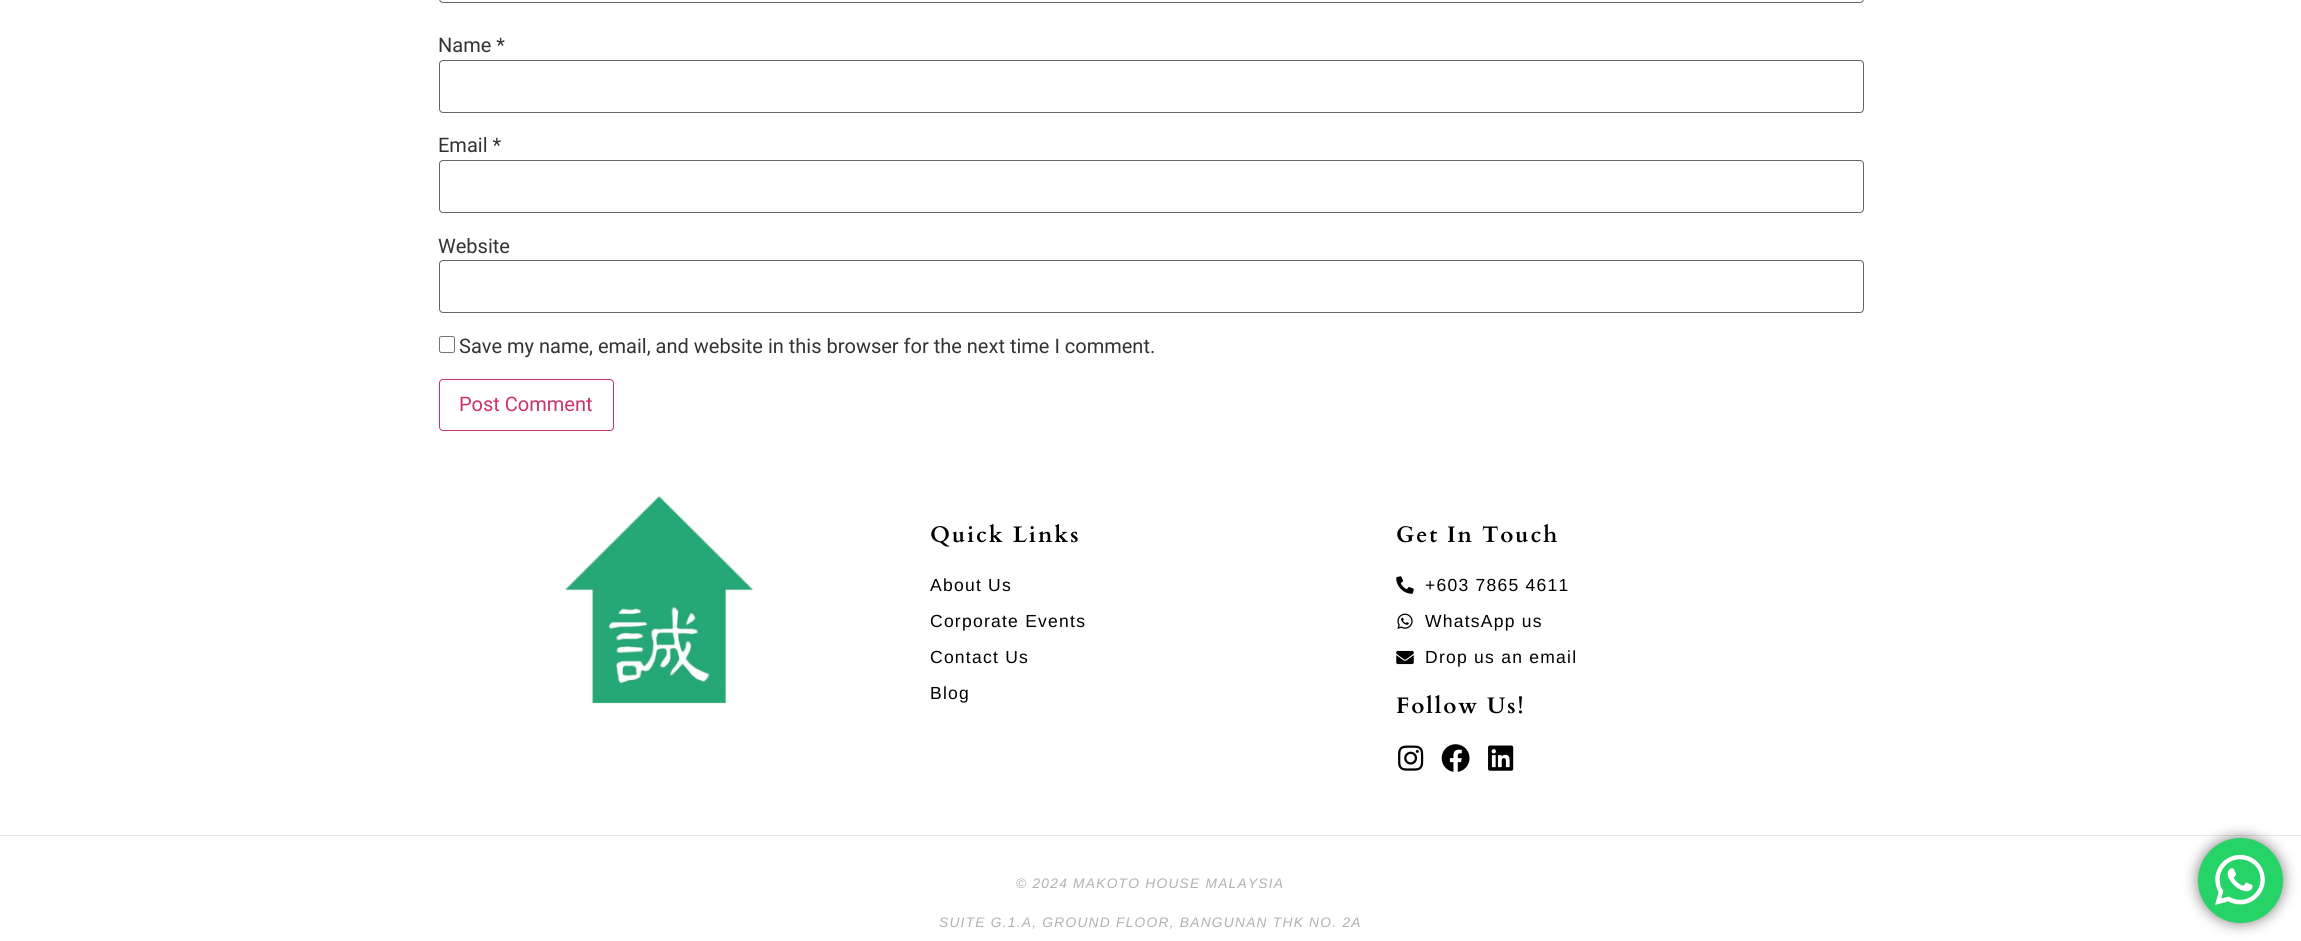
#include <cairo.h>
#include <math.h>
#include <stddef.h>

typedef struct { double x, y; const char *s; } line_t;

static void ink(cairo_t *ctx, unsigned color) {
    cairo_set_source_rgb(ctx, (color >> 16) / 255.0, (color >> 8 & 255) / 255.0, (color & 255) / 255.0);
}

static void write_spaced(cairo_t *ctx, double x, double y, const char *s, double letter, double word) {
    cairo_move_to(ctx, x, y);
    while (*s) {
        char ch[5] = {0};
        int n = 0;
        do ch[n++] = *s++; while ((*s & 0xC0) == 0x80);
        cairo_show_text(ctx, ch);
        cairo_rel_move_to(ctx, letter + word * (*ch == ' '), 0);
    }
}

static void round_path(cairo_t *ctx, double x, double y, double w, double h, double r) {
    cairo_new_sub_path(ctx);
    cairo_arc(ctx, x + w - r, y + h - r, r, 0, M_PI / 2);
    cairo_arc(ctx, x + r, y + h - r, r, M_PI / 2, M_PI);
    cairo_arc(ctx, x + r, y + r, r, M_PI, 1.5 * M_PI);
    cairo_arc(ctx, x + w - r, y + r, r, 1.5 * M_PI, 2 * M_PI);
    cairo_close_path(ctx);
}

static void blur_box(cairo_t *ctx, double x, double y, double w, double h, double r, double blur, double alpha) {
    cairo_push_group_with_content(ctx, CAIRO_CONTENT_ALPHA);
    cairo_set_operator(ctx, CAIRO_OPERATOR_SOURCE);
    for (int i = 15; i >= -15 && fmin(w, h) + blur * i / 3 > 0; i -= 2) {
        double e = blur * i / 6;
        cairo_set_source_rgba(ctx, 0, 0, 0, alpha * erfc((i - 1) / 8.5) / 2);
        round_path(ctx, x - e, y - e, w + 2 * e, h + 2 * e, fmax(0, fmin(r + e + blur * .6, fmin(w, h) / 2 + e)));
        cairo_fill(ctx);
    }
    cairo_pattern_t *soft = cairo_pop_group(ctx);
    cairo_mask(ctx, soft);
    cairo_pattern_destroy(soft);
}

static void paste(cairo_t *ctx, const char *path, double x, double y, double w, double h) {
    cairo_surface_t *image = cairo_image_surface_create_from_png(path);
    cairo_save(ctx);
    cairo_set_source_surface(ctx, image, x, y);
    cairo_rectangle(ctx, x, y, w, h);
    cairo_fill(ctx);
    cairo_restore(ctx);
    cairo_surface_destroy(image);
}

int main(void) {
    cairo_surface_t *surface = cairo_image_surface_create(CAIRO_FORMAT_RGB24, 2301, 941);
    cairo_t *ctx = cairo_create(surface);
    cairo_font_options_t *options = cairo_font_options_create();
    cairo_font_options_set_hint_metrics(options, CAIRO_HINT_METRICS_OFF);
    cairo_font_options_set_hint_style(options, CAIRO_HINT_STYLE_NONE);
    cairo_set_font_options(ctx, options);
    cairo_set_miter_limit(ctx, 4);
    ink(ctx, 0xFFFFFF);
    cairo_paint(ctx);
    round_path(ctx, 439.5, -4.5, 1424, 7, 3.5);
    ink(ctx, 0x666666);
    cairo_set_line_width(ctx, 1);
    cairo_stroke(ctx);
    cairo_select_font_face(ctx, "Roboto", CAIRO_FONT_SLANT_NORMAL, CAIRO_FONT_WEIGHT_NORMAL);
    cairo_set_font_size(ctx, 20);
    ink(ctx, 0x333333);
    cairo_move_to(ctx, 438, 52);
    cairo_show_text(ctx, "Name *");
    round_path(ctx, 439.5, 60.5, 1424, 52, 3.5);
    ink(ctx, 0x666666);
    cairo_stroke(ctx);
    ink(ctx, 0x333333);
    cairo_move_to(ctx, 438, 152);
    cairo_show_text(ctx, "Email *");
    round_path(ctx, 439.5, 160.5, 1424, 52, 3.5);
    ink(ctx, 0x666666);
    cairo_stroke(ctx);
    ink(ctx, 0x333333);
    cairo_move_to(ctx, 438, 253);
    cairo_show_text(ctx, "Website");
    round_path(ctx, 439.5, 260.5, 1424, 52, 3.5);
    ink(ctx, 0x666666);
    cairo_stroke(ctx);
    round_path(ctx, 439.5, 336.5, 15, 16, 2);
    ink(ctx, 0x767676);
    cairo_stroke(ctx);
    ink(ctx, 0x333333);
    cairo_move_to(ctx, 459, 353);
    cairo_show_text(ctx, "Save my name, email, and website in this browser for the next time I comment.");
    round_path(ctx, 439.5, 379.5, 174, 51, 3.5);
    ink(ctx, 0xCC3366);
    cairo_stroke(ctx);
    cairo_move_to(ctx, 459, 411);
    cairo_show_text(ctx, "Post Comment");
    ink(ctx, 0xE8E8E1);
    cairo_rectangle(ctx, 0, 835, 2301, 1);
    cairo_fill(ctx);
    paste(ctx, "media/1.png", 565, 496, 188, 208);
    cairo_select_font_face(ctx, "Cardo", CAIRO_FONT_SLANT_NORMAL, CAIRO_FONT_WEIGHT_BOLD);
    cairo_set_font_size(ctx, 22.5);
    ink(ctx, 0x000000);
    write_spaced(ctx, 930, 542, "Quick Links", 1.9, 0);
    cairo_select_font_face(ctx, "Arimo", CAIRO_FONT_SLANT_NORMAL, CAIRO_FONT_WEIGHT_NORMAL);
    cairo_set_font_size(ctx, 17.5);
    {
        static const line_t items[] = {
            {930, 591, "About Us"},
            {930, 627, "Corporate Events"},
            {930, 663, "Contact Us"},
            {930, 699, "Blog"},
        };
        for (size_t i = 0; i < sizeof items / sizeof *items; i++) {
            write_spaced(ctx, items[i].x, items[i].y, items[i].s, 1.25, 0);
        }
    }
    cairo_select_font_face(ctx, "Cardo", CAIRO_FONT_SLANT_NORMAL, CAIRO_FONT_WEIGHT_BOLD);
    cairo_set_font_size(ctx, 22.5);
    write_spaced(ctx, 1396, 542, "Get In Touch", 1.9, 0);
    paste(ctx, "media/2.png", 1396, 576, 18, 18);
    cairo_select_font_face(ctx, "Arimo", CAIRO_FONT_SLANT_NORMAL, CAIRO_FONT_WEIGHT_NORMAL);
    cairo_set_font_size(ctx, 17.5);
    write_spaced(ctx, 1425, 591, "+603 7865 4611", 1.25, 0);
    paste(ctx, "media/3.png", 1397, 613, 16, 16);
    write_spaced(ctx, 1425, 627, "WhatsApp us", 1.25, 0);
    paste(ctx, "media/4.png", 1396, 650, 18, 15);
    write_spaced(ctx, 1425, 663, "Drop us an email", 1.25, 0);
    cairo_select_font_face(ctx, "Cardo", CAIRO_FONT_SLANT_NORMAL, CAIRO_FONT_WEIGHT_BOLD);
    cairo_set_font_size(ctx, 22.5);
    write_spaced(ctx, 1396, 713, "Follow Us!", 1.9, 0);
    paste(ctx, "media/5.png", 1398, 745, 26, 26);
    paste(ctx, "media/6.png", 1441, 744, 29, 28);
    paste(ctx, "media/7.png", 1488, 745, 26, 26);
    cairo_select_font_face(ctx, "Arimo", CAIRO_FONT_SLANT_ITALIC, CAIRO_FONT_WEIGHT_NORMAL);
    cairo_set_font_size(ctx, 13.75);
    ink(ctx, 0xB1B1B1);
    write_spaced(ctx, 1016, 888, "© 2024 MAKOTO HOUSE MALAYSIA", 1.25, 0);
    write_spaced(ctx, 939, 927, "SUITE G.1.A, GROUND FLOOR, BANGUNAN THK NO. 2A", 1.25, 0);
    ink(ctx, 0x000000);
    blur_box(ctx, 2198, 838, 85, 85, 42.5, 7, 0.5);
    ink(ctx, 0x25D366);
    cairo_arc(ctx, 2240.5, 880.5, 42.5, 0, 2 * M_PI);
    cairo_fill(ctx);
    paste(ctx, "media/8.png", 2215, 855, 50, 50);
    cairo_surface_write_to_png(surface, "image.png");
    cairo_font_options_destroy(options);
    cairo_destroy(ctx);
    cairo_surface_destroy(surface);
    return 0;
}
